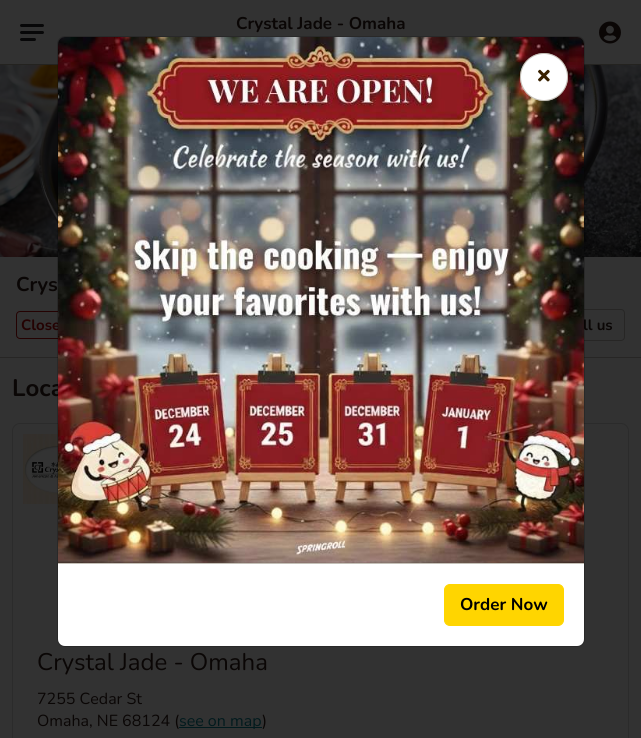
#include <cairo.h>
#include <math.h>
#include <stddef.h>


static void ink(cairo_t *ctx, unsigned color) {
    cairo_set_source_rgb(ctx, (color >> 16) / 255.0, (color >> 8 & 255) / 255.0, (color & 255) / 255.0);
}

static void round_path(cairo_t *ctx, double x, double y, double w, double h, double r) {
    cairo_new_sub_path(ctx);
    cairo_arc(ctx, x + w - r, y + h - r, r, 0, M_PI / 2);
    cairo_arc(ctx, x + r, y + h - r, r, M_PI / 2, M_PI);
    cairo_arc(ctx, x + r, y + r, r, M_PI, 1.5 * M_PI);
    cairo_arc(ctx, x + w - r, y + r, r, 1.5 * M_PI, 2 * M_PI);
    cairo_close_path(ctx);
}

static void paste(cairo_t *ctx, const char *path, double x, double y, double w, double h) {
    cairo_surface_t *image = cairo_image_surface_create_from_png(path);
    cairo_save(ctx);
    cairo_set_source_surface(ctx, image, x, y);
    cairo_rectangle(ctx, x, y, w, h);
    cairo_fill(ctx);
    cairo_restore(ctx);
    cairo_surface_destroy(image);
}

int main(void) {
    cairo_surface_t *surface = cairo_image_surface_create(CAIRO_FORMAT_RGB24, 641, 738);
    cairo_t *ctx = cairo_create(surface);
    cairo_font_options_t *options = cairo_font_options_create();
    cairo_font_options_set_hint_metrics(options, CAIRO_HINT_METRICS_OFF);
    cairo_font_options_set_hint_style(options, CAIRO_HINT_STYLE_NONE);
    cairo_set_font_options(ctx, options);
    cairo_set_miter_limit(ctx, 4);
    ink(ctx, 0x323232);
    cairo_paint(ctx);
    ink(ctx, 0x242320);
    cairo_rectangle(ctx, 0, 64, 641, 1);
    cairo_fill(ctx);
    ink(ctx, 0x070708);
    round_path(ctx, 20, 24, 24, 3, 1.5);
    cairo_fill(ctx);
    round_path(ctx, 20, 31, 24, 3, 1.5);
    cairo_fill(ctx);
    round_path(ctx, 20, 38, 16, 3, 1.5);
    cairo_fill(ctx);
    cairo_select_font_face(ctx, "Nunito", CAIRO_FONT_SLANT_NORMAL, CAIRO_FONT_WEIGHT_BOLD);
    cairo_set_font_size(ctx, 17);
    ink(ctx, 0x0A0605);
    cairo_move_to(ctx, 236, 29);
    cairo_show_text(ctx, "Crystal Jade - Omaha");
    paste(ctx, "media/1.png", 599, 21, 22, 23);
    ink(ctx, 0x272625);
    cairo_rectangle(ctx, 0, 357, 641, 1);
    cairo_fill(ctx);
    paste(ctx, "media/2.png", 0, 65, 641, 192);
    cairo_set_font_size(ctx, 20);
    ink(ctx, 0x0A0605);
    cairo_move_to(ctx, 16, 291);
    cairo_show_text(ctx, "Crys");
    round_path(ctx, 16.5, 311.5, 57, 27, 3.5);
    ink(ctx, 0x240202);
    cairo_set_line_width(ctx, 1);
    cairo_stroke(ctx);
    cairo_set_font_size(ctx, 15);
    cairo_move_to(ctx, 21, 330);
    cairo_show_text(ctx, "Close");
    round_path(ctx, 530.5, 309.5, 94, 31, 3.5);
    ink(ctx, 0x272625);
    cairo_stroke(ctx);
    ink(ctx, 0x0A0605);
    cairo_move_to(ctx, 583, 330);
    cairo_show_text(ctx, "ll us");
    cairo_set_font_size(ctx, 24);
    cairo_move_to(ctx, 12, 396);
    cairo_show_text(ctx, "Loca");
    round_path(ctx, 12.5, 423.5, 616, 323, 7.5);
    ink(ctx, 0x2B2B2B);
    cairo_stroke(ctx);
    paste(ctx, "media/3.png", 23, 434, 35, 70);
    cairo_select_font_face(ctx, "Nunito", CAIRO_FONT_SLANT_NORMAL, CAIRO_FONT_WEIGHT_NORMAL);
    ink(ctx, 0x0A0605);
    cairo_move_to(ctx, 37, 670);
    cairo_show_text(ctx, "Crystal Jade - Omaha");
    cairo_set_font_size(ctx, 16);
    cairo_move_to(ctx, 37, 704);
    cairo_show_text(ctx, "7255 Cedar St");
    cairo_move_to(ctx, 37, 726);
    cairo_show_text(ctx, "Omaha, NE 68124 (");
    ink(ctx, 0x011A1D);
    cairo_rectangle(ctx, 179, 727, 83, 1);
    cairo_fill(ctx);
    cairo_move_to(ctx, 179, 726);
    cairo_show_text(ctx, "see on map");
    ink(ctx, 0x0A0605);
    cairo_move_to(ctx, 262, 726);
    cairo_show_text(ctx, ")");
    round_path(ctx, 57.5, 36.5, 527, 610, 7.5);
    cairo_set_source_rgba(ctx, 0, 0, 0, 0.18);
    cairo_stroke(ctx);
    paste(ctx, "media/4.png", 58, 37, 526, 526);
    ink(ctx, 0xFFFFFF);
    cairo_arc(ctx, 544, 77, 24, 0, 2 * M_PI);
    cairo_fill(ctx);
    cairo_arc(ctx, 544, 77, 23.5, 0, 2 * M_PI);
    cairo_set_source_rgba(ctx, 0.58, 0.553, 0.486, 0.55);
    cairo_stroke(ctx);
    paste(ctx, "media/5.png", 538, 69, 12, 13);
    ink(ctx, 0xFFFFFF);
    cairo_new_path(ctx);
    cairo_move_to(ctx, 58, 563);
    cairo_line_to(ctx, 584, 563);
    cairo_line_to(ctx, 584, 639);
    cairo_curve_to(ctx, 584, 643, 581, 646, 577, 646);
    cairo_line_to(ctx, 65, 646);
    cairo_curve_to(ctx, 61, 646, 58, 643, 58, 639);
    cairo_close_path(ctx);
    cairo_fill(ctx);
    ink(ctx, 0xC4C0B7);
    cairo_rectangle(ctx, 58, 563, 526, 1);
    cairo_fill(ctx);
    ink(ctx, 0xFFD500);
    round_path(ctx, 444.5, 584.5, 119, 41, 5.5);
    cairo_fill_preserve(ctx);
    cairo_stroke(ctx);
    cairo_select_font_face(ctx, "Nunito", CAIRO_FONT_SLANT_NORMAL, CAIRO_FONT_WEIGHT_BOLD);
    cairo_set_font_size(ctx, 17);
    ink(ctx, 0x000000);
    cairo_move_to(ctx, 460, 610);
    cairo_show_text(ctx, "Order Now");
    cairo_surface_write_to_png(surface, "image.png");
    cairo_font_options_destroy(options);
    cairo_destroy(ctx);
    cairo_surface_destroy(surface);
    return 0;
}
